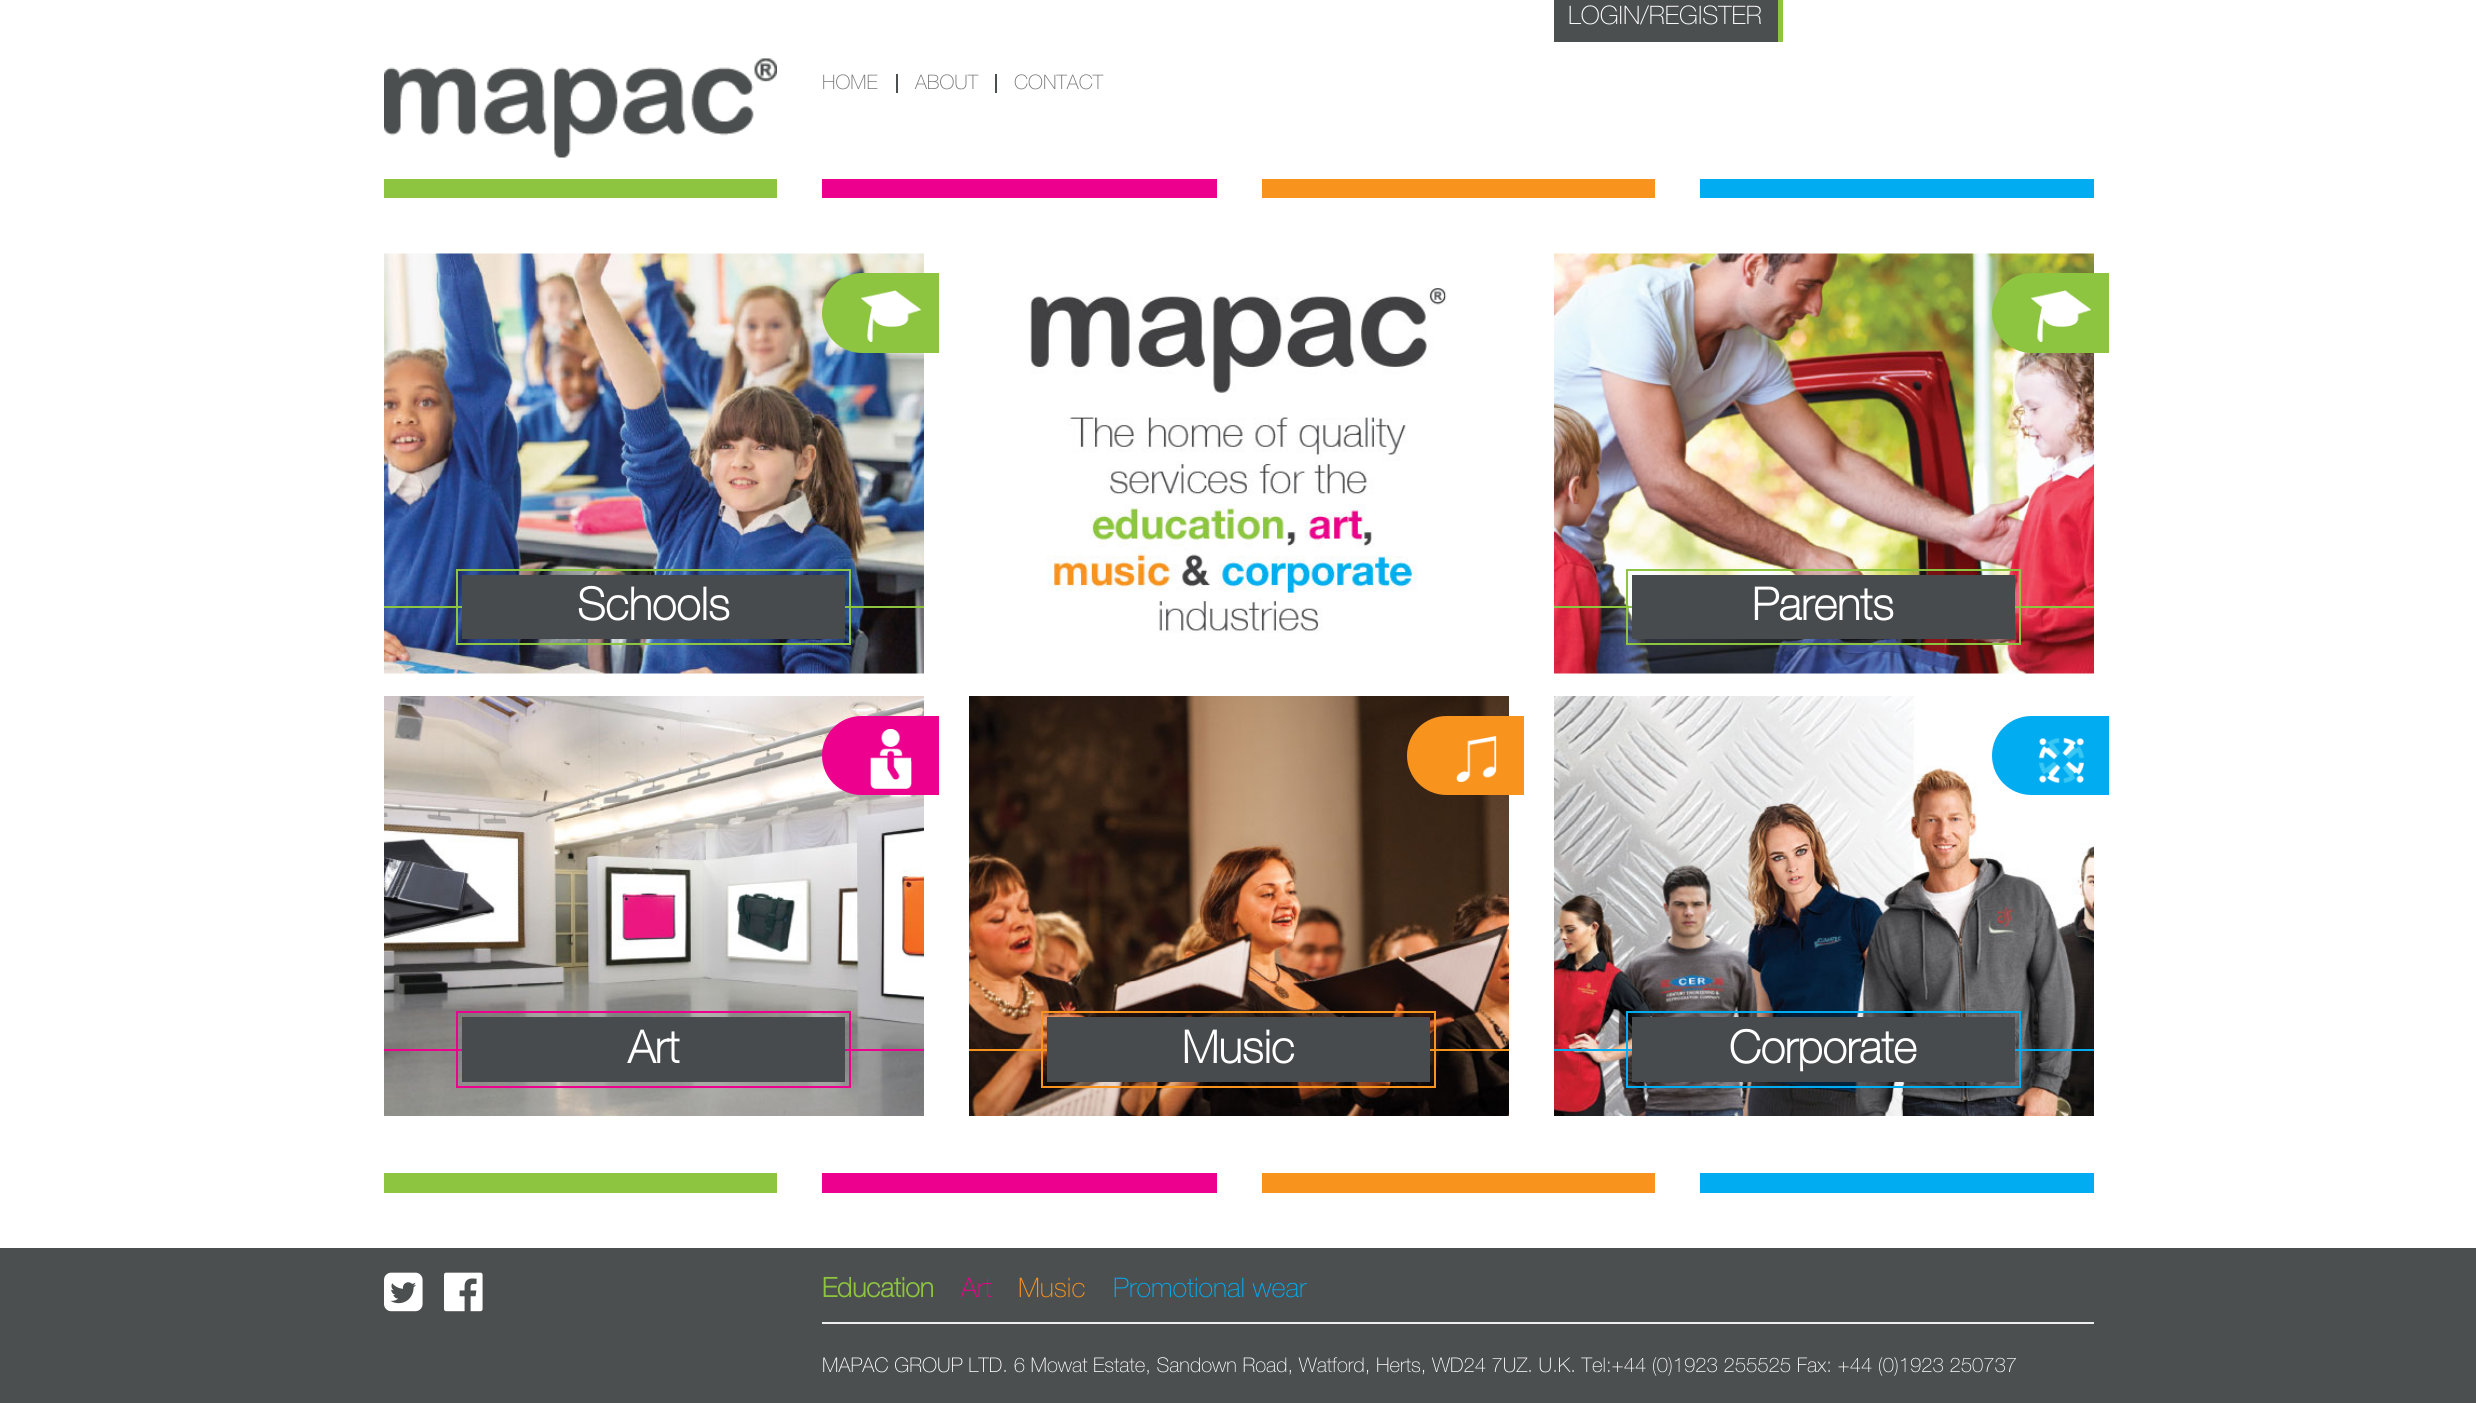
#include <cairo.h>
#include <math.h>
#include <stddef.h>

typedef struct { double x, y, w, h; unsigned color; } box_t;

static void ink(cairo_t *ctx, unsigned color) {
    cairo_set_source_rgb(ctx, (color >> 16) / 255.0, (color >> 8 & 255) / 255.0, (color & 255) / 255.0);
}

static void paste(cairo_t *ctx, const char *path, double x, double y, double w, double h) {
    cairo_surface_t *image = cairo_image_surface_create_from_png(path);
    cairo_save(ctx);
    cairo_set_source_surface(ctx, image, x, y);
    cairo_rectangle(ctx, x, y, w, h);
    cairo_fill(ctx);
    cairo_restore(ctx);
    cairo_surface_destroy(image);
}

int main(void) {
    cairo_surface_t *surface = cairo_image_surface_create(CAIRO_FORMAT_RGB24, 2476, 1403);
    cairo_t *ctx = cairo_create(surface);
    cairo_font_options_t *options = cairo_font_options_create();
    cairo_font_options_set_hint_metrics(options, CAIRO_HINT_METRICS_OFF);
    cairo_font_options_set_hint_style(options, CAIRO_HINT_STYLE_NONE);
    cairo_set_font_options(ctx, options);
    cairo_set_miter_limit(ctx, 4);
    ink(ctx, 0xFFFFFF);
    cairo_paint(ctx);
    ink(ctx, 0x4C4F4F);
    cairo_rectangle(ctx, 1554, 0, 224, 42);
    cairo_fill(ctx);
    cairo_select_font_face(ctx, "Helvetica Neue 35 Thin", CAIRO_FONT_SLANT_NORMAL, CAIRO_FONT_WEIGHT_NORMAL);
    cairo_set_font_size(ctx, 25.5);
    ink(ctx, 0xFFFFFF);
    cairo_move_to(ctx, 1568, 24);
    cairo_show_text(ctx, "LOGIN/REGISTER");
    ink(ctx, 0x8DC540);
    cairo_rectangle(ctx, 1778, 0, 5, 42);
    cairo_fill(ctx);
    ink(ctx, 0x4C4F4F);
    cairo_rectangle(ctx, 896, 74, 2, 19);
    cairo_fill(ctx);
    cairo_set_font_size(ctx, 20);
    ink(ctx, 0x777777);
    cairo_move_to(ctx, 822, 89);
    cairo_show_text(ctx, "HOME");
    ink(ctx, 0x4C4F4F);
    cairo_rectangle(ctx, 995, 74, 2, 19);
    cairo_fill(ctx);
    ink(ctx, 0x777777);
    cairo_move_to(ctx, 915, 89);
    cairo_show_text(ctx, "ABOUT");
    cairo_move_to(ctx, 1014, 89);
    cairo_show_text(ctx, "CONTACT");
    paste(ctx, "media/1.png", 384, 58, 393, 100);
    {
        static const box_t items[] = {
            {384, 179, 393, 19, 0x8DC540},
            {822, 179, 395, 19, 0xEC008D},
            {1262, 179, 393, 19, 0xF8931D},
            {1700, 179, 394, 19, 0x01ACF1},
        };
        for (size_t i = 0; i < sizeof items / sizeof *items; i++) {
            ink(ctx, items[i].color);
            cairo_rectangle(ctx, items[i].x, items[i].y, items[i].w, items[i].h);
            cairo_fill(ctx);
        }
    }
    paste(ctx, "media/2.png", 384, 253, 540, 421);
    ink(ctx, 0x8DC540);
    cairo_new_path(ctx);
    cairo_move_to(ctx, 862, 273);
    cairo_line_to(ctx, 939, 273);
    cairo_line_to(ctx, 939, 353);
    cairo_line_to(ctx, 862, 353);
    cairo_curve_to(ctx, 840, 353, 822, 335, 822, 313);
    cairo_curve_to(ctx, 822, 291, 840, 273, 862, 273);
    cairo_close_path(ctx);
    cairo_fill(ctx);
    paste(ctx, "media/3.png", 861, 290, 60, 52);
    cairo_rectangle(ctx, 384, 606, 540, 2);
    cairo_fill(ctx);
    cairo_rectangle(ctx, 457, 570, 393, 74);
    cairo_stroke(ctx);
    ink(ctx, 0x474B4E);
    cairo_rectangle(ctx, 462, 575, 383, 64);
    cairo_fill(ctx);
    cairo_select_font_face(ctx, "Helvetica Neue 35 Thin", CAIRO_FONT_SLANT_NORMAL, CAIRO_FONT_WEIGHT_BOLD);
    cairo_set_font_size(ctx, 45);
    ink(ctx, 0xFFFFFF);
    cairo_move_to(ctx, 577, 620);
    cairo_show_text(ctx, "Schools");
    paste(ctx, "media/4.png", 1029, 288, 418, 346);
    paste(ctx, "media/5.png", 1554, 253, 540, 421);
    ink(ctx, 0x8DC540);
    cairo_new_path(ctx);
    cairo_move_to(ctx, 2032, 273);
    cairo_line_to(ctx, 2109, 273);
    cairo_line_to(ctx, 2109, 353);
    cairo_line_to(ctx, 2032, 353);
    cairo_curve_to(ctx, 2010, 353, 1992, 335, 1992, 313);
    cairo_curve_to(ctx, 1992, 291, 2010, 273, 2032, 273);
    cairo_close_path(ctx);
    cairo_fill(ctx);
    paste(ctx, "media/3.png", 2031, 290, 60, 52);
    cairo_rectangle(ctx, 1554, 606, 540, 2);
    cairo_fill(ctx);
    cairo_rectangle(ctx, 1627, 570, 393, 74);
    cairo_stroke(ctx);
    ink(ctx, 0x474B4E);
    cairo_rectangle(ctx, 1632, 575, 383, 64);
    cairo_fill(ctx);
    ink(ctx, 0xFFFFFF);
    cairo_move_to(ctx, 1752, 620);
    cairo_show_text(ctx, "Parents");
    paste(ctx, "media/6.png", 384, 696, 540, 420);
    ink(ctx, 0xEC008D);
    cairo_new_path(ctx);
    cairo_move_to(ctx, 861.5, 716);
    cairo_line_to(ctx, 939, 716);
    cairo_line_to(ctx, 939, 795);
    cairo_line_to(ctx, 861.5, 795);
    cairo_curve_to(ctx, 839.5, 795, 822, 777.5, 822, 755.5);
    cairo_curve_to(ctx, 822, 733.5, 839.5, 716, 861.5, 716);
    cairo_close_path(ctx);
    cairo_fill(ctx);
    paste(ctx, "media/7.png", 870, 729, 42, 60);
    cairo_rectangle(ctx, 384, 1049, 540, 2);
    cairo_fill(ctx);
    cairo_rectangle(ctx, 457, 1012, 393, 75);
    cairo_stroke(ctx);
    ink(ctx, 0x474B4E);
    cairo_rectangle(ctx, 462, 1017, 383, 65);
    cairo_fill(ctx);
    ink(ctx, 0xFFFFFF);
    cairo_move_to(ctx, 628, 1063);
    cairo_show_text(ctx, "Art");
    paste(ctx, "media/8.png", 969, 696, 540, 420);
    ink(ctx, 0xF8931D);
    cairo_new_path(ctx);
    cairo_move_to(ctx, 1446.5, 716);
    cairo_line_to(ctx, 1524, 716);
    cairo_line_to(ctx, 1524, 795);
    cairo_line_to(ctx, 1446.5, 795);
    cairo_curve_to(ctx, 1424.5, 795, 1407, 777.5, 1407, 755.5);
    cairo_curve_to(ctx, 1407, 733.5, 1424.5, 716, 1446.5, 716);
    cairo_close_path(ctx);
    cairo_fill(ctx);
    paste(ctx, "media/9.png", 1456, 736, 41, 46);
    cairo_rectangle(ctx, 969, 1049, 540, 2);
    cairo_fill(ctx);
    cairo_rectangle(ctx, 1042, 1012, 393, 75);
    cairo_stroke(ctx);
    ink(ctx, 0x474B4E);
    cairo_rectangle(ctx, 1047, 1017, 383, 65);
    cairo_fill(ctx);
    ink(ctx, 0xFFFFFF);
    cairo_move_to(ctx, 1182, 1063);
    cairo_show_text(ctx, "Music");
    paste(ctx, "media/10.png", 1554, 696, 540, 420);
    ink(ctx, 0x01ACF1);
    cairo_new_path(ctx);
    cairo_move_to(ctx, 2031.5, 716);
    cairo_line_to(ctx, 2109, 716);
    cairo_line_to(ctx, 2109, 795);
    cairo_line_to(ctx, 2031.5, 795);
    cairo_curve_to(ctx, 2009.5, 795, 1992, 777.5, 1992, 755.5);
    cairo_curve_to(ctx, 1992, 733.5, 2009.5, 716, 2031.5, 716);
    cairo_close_path(ctx);
    cairo_fill(ctx);
    paste(ctx, "media/11.png", 2039, 738, 45, 45);
    cairo_rectangle(ctx, 1554, 1049, 540, 2);
    cairo_fill(ctx);
    cairo_rectangle(ctx, 1627, 1012, 393, 75);
    cairo_stroke(ctx);
    ink(ctx, 0x474B4E);
    cairo_rectangle(ctx, 1632, 1017, 383, 65);
    cairo_fill(ctx);
    ink(ctx, 0xFFFFFF);
    cairo_move_to(ctx, 1729, 1063);
    cairo_show_text(ctx, "Corporate");
    {
        static const box_t items[] = {
            {384, 1173, 393, 20, 0x8DC540},
            {822, 1173, 395, 20, 0xEC008D},
            {1262, 1173, 393, 20, 0xF8931D},
            {1700, 1173, 394, 20, 0x01ACF1},
            {0, 1248, 2476, 155, 0x4C4F4F},
        };
        for (size_t i = 0; i < sizeof items / sizeof *items; i++) {
            ink(ctx, items[i].color);
            cairo_rectangle(ctx, items[i].x, items[i].y, items[i].w, items[i].h);
            cairo_fill(ctx);
        }
    }
    paste(ctx, "media/12.png", 384, 1272, 39, 40);
    paste(ctx, "media/13.png", 444, 1272, 39, 40);
    cairo_set_font_size(ctx, 27);
    ink(ctx, 0x8DC540);
    cairo_move_to(ctx, 822, 1297);
    cairo_show_text(ctx, "Education");
    cairo_select_font_face(ctx, "Helvetica Neue 35 Thin", CAIRO_FONT_SLANT_NORMAL, CAIRO_FONT_WEIGHT_NORMAL);
    ink(ctx, 0xEC008D);
    cairo_move_to(ctx, 961, 1297);
    cairo_show_text(ctx, "Art");
    ink(ctx, 0xF8931D);
    cairo_move_to(ctx, 1018, 1297);
    cairo_show_text(ctx, "Music");
    ink(ctx, 0x01ACF1);
    cairo_move_to(ctx, 1113, 1297);
    cairo_show_text(ctx, "Promotional wear");
    ink(ctx, 0xEEEEEE);
    cairo_rectangle(ctx, 822, 1322, 1272, 2);
    cairo_fill(ctx);
    cairo_set_font_size(ctx, 20.25);
    ink(ctx, 0xFFFFFF);
    cairo_move_to(ctx, 822, 1372);
    cairo_show_text(ctx, "MAPAC GROUP LTD. 6 Mowat Estate, Sandown Road, Watford, Herts, WD24 7UZ. U.K. Tel:+44 (0)1923 255525 Fax: +44 (0)1923 250737");
    cairo_surface_write_to_png(surface, "image.png");
    cairo_font_options_destroy(options);
    cairo_destroy(ctx);
    cairo_surface_destroy(surface);
    return 0;
}
